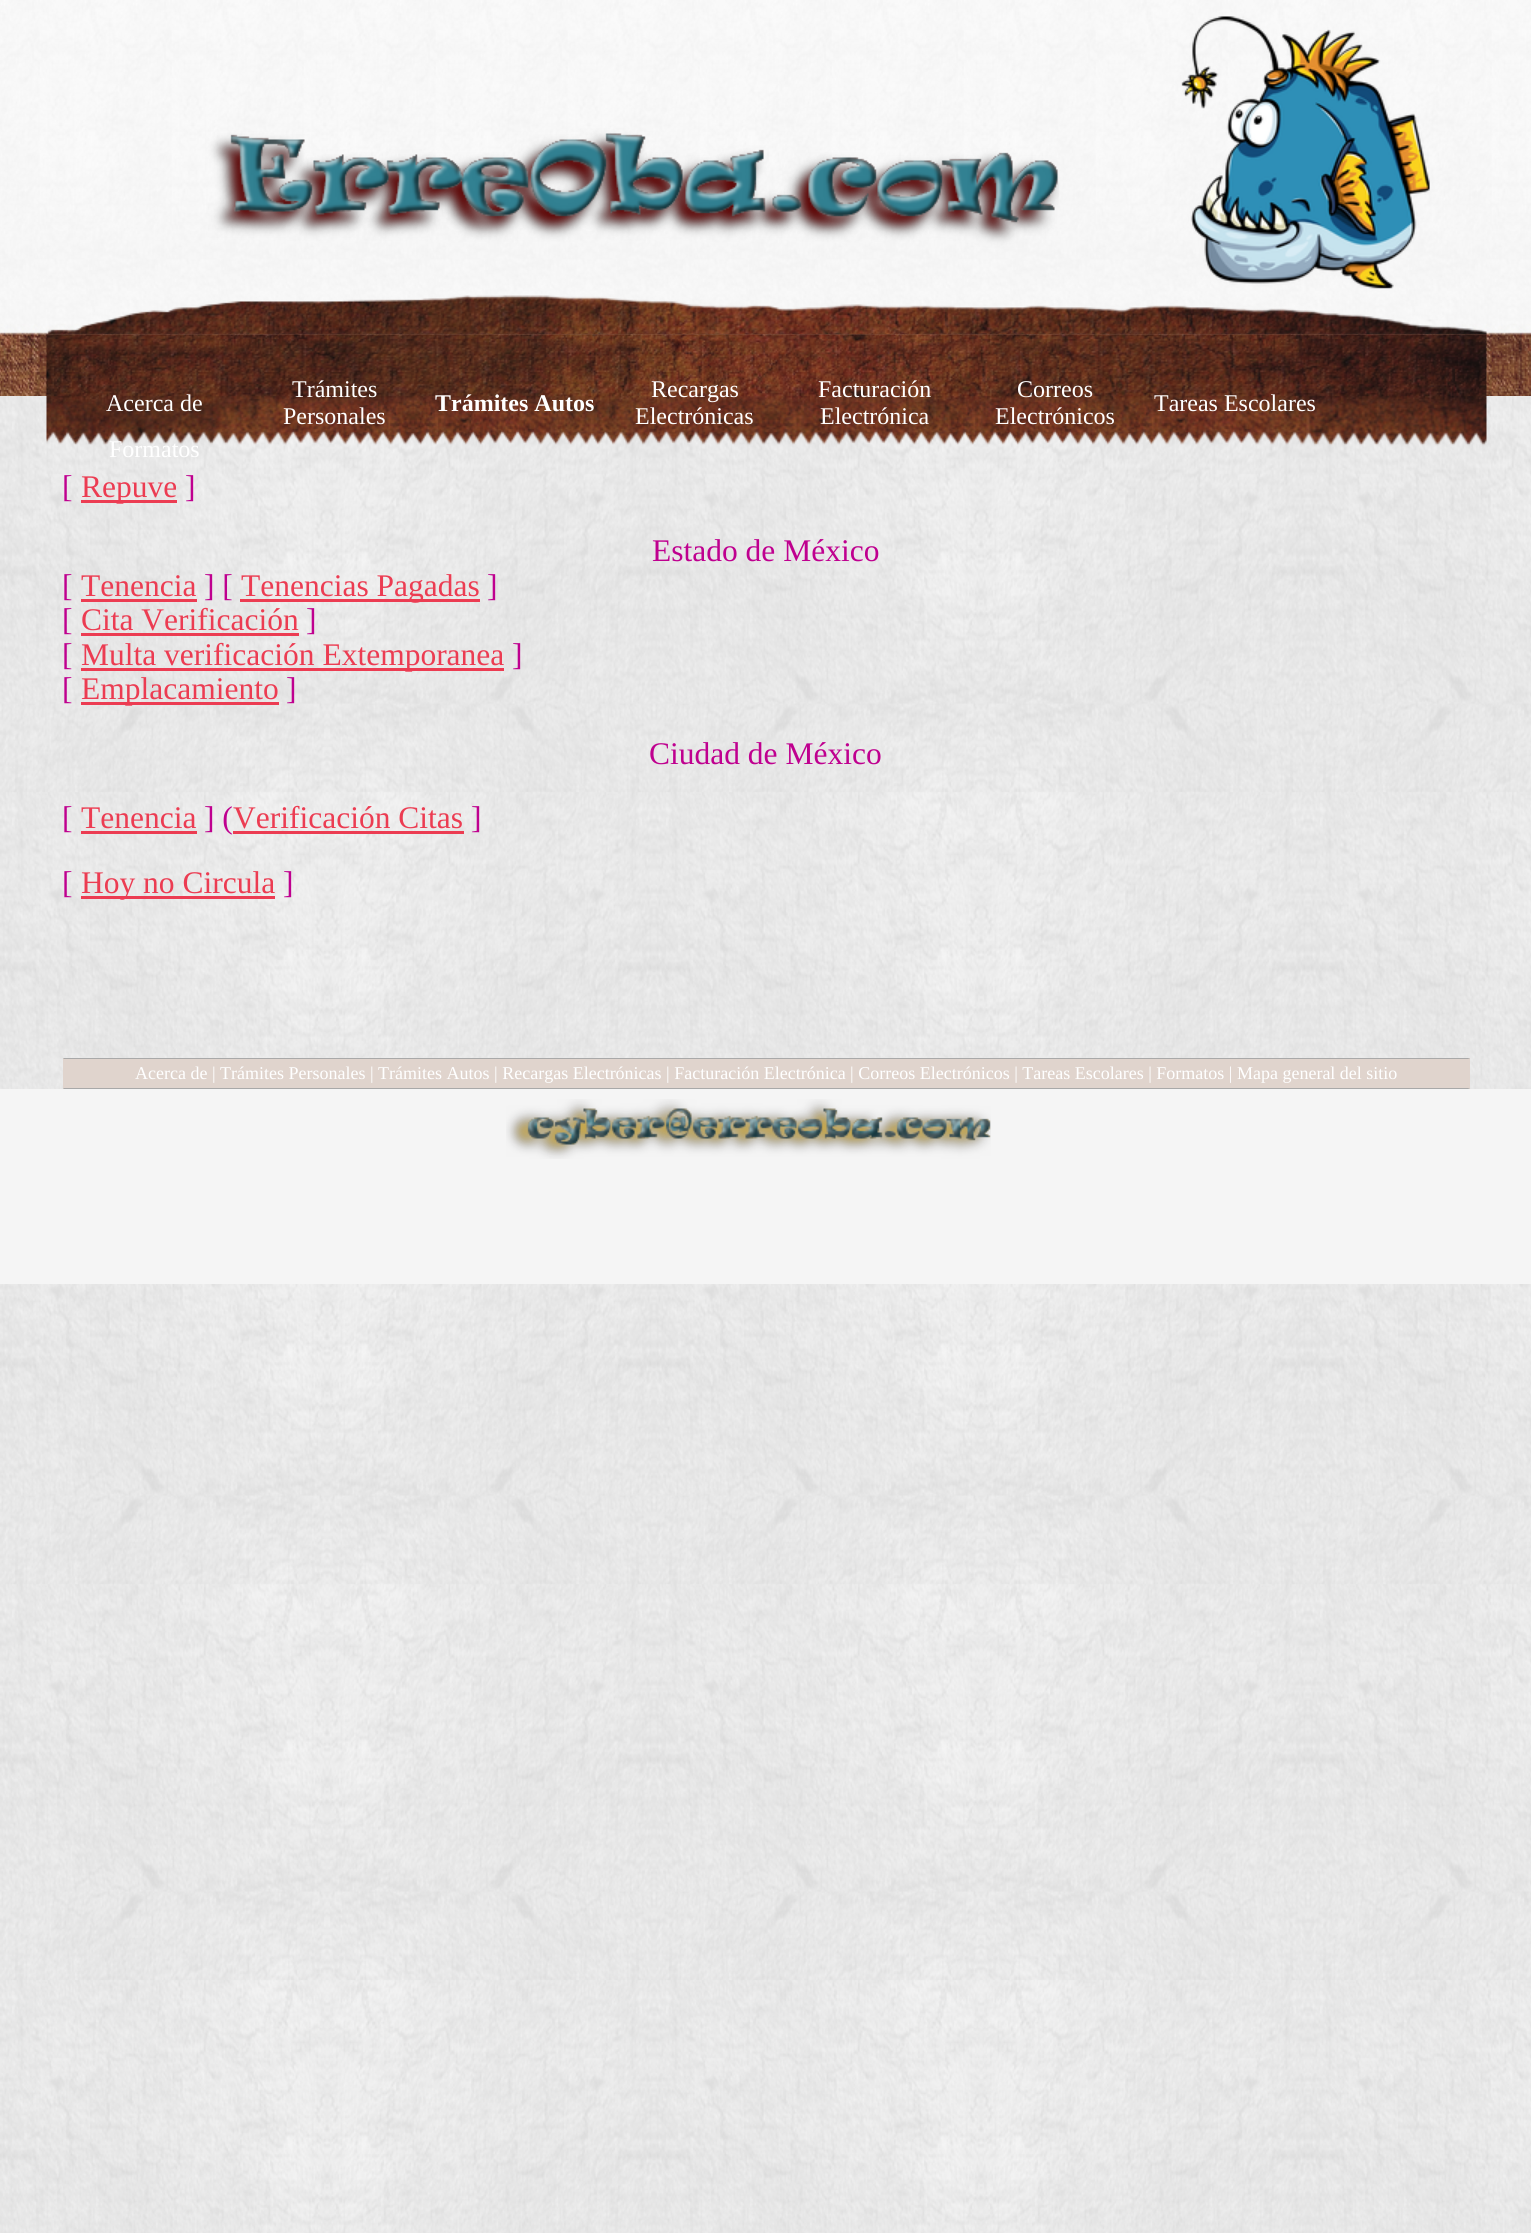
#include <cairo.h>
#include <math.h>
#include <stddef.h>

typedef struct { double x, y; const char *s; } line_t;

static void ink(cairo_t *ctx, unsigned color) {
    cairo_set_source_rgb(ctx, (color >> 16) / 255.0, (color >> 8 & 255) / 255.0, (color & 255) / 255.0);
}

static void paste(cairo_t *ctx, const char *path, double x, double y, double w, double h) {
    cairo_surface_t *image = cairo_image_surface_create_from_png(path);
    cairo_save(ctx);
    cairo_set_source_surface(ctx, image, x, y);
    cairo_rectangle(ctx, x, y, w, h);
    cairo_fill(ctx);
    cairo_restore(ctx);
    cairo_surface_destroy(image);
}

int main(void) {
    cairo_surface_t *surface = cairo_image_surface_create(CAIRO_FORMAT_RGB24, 1531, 2233);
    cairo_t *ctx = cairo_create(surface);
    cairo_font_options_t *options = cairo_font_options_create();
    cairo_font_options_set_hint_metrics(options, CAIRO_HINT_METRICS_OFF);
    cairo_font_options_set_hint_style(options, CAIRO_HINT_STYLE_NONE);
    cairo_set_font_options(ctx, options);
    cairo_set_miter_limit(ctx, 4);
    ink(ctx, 0xFFFFFF);
    cairo_paint(ctx);
    paste(ctx, "media/1.png", 0, 396, 1531, 1837);
    paste(ctx, "media/2.png", 0, 0, 1531, 396);
    paste(ctx, "media/3.png", 47, 16, 1440, 319);
    paste(ctx, "media/4.png", 46, 334, 1441, 112);
    cairo_select_font_face(ctx, "Liberation Serif", CAIRO_FONT_SLANT_NORMAL, CAIRO_FONT_WEIGHT_NORMAL);
    cairo_set_font_size(ctx, 24);
    ink(ctx, 0xFFFFFF);
    {
        static const line_t items[] = {
            {106, 411, "Acerca de"},
            {292, 397, "Trámites"},
            {283, 424, "Personales"},
        };
        for (size_t i = 0; i < sizeof items / sizeof *items; i++) {
            cairo_move_to(ctx, items[i].x, items[i].y);
            cairo_show_text(ctx, items[i].s);
        }
    }
    cairo_select_font_face(ctx, "Liberation Serif", CAIRO_FONT_SLANT_NORMAL, CAIRO_FONT_WEIGHT_BOLD);
    cairo_move_to(ctx, 435, 411);
    cairo_show_text(ctx, "Trámites Autos");
    cairo_select_font_face(ctx, "Liberation Serif", CAIRO_FONT_SLANT_NORMAL, CAIRO_FONT_WEIGHT_NORMAL);
    {
        static const line_t items[] = {
            {651, 397, "Recargas"},
            {635, 424, "Electrónicas"},
            {818, 397, "Facturación"},
            {820, 424, "Electrónica"},
            {1017, 397, "Correos"},
            {995, 424, "Electrónicos"},
            {1154, 411, "Tareas Escolares"},
            {109, 457, "Formatos"},
        };
        for (size_t i = 0; i < sizeof items / sizeof *items; i++) {
            cairo_move_to(ctx, items[i].x, items[i].y);
            cairo_show_text(ctx, items[i].s);
        }
    }
    cairo_set_font_size(ctx, 31.5);
    ink(ctx, 0xBF008F);
    cairo_move_to(ctx, 62, 497);
    cairo_show_text(ctx, "[");
    ink(ctx, 0xEC3C52);
    cairo_rectangle(ctx, 81, 500, 96, 3);
    cairo_fill(ctx);
    cairo_move_to(ctx, 81, 497);
    cairo_show_text(ctx, "Repuve");
    ink(ctx, 0xBF008F);
    {
        static const line_t items[] = {
            {185, 497, "]"},
            {652, 561, "Estado de México"},
            {62, 596, "["},
        };
        for (size_t i = 0; i < sizeof items / sizeof *items; i++) {
            cairo_move_to(ctx, items[i].x, items[i].y);
            cairo_show_text(ctx, items[i].s);
        }
    }
    ink(ctx, 0xEC3C52);
    cairo_move_to(ctx, 81, 596);
    cairo_show_text(ctx, "Tenencia");
    cairo_rectangle(ctx, 81, 599, 116, 3);
    cairo_fill(ctx);
    ink(ctx, 0xBF008F);
    cairo_move_to(ctx, 204, 596);
    cairo_show_text(ctx, "] [");
    ink(ctx, 0xEC3C52);
    cairo_rectangle(ctx, 240, 599, 240, 3);
    cairo_fill(ctx);
    cairo_move_to(ctx, 241, 596);
    cairo_show_text(ctx, "Tenencias Pagadas");
    ink(ctx, 0xBF008F);
    cairo_move_to(ctx, 487, 596);
    cairo_show_text(ctx, "]");
    cairo_move_to(ctx, 62, 630);
    cairo_show_text(ctx, "[");
    ink(ctx, 0xEC3C52);
    cairo_move_to(ctx, 81, 630);
    cairo_show_text(ctx, "Cita Verificación");
    cairo_rectangle(ctx, 81, 633, 218, 3);
    cairo_fill(ctx);
    ink(ctx, 0xBF008F);
    cairo_move_to(ctx, 306, 630);
    cairo_show_text(ctx, "]");
    cairo_move_to(ctx, 62, 665);
    cairo_show_text(ctx, "[");
    ink(ctx, 0xEC3C52);
    cairo_rectangle(ctx, 81, 668, 423, 3);
    cairo_fill(ctx);
    cairo_move_to(ctx, 81, 665);
    cairo_show_text(ctx, "Multa verificación Extemporanea");
    ink(ctx, 0xBF008F);
    cairo_move_to(ctx, 512, 665);
    cairo_show_text(ctx, "]");
    cairo_move_to(ctx, 62, 699);
    cairo_show_text(ctx, "[");
    ink(ctx, 0xEC3C52);
    cairo_rectangle(ctx, 81, 702, 198, 3);
    cairo_fill(ctx);
    cairo_move_to(ctx, 81, 699);
    cairo_show_text(ctx, "Emplacamiento");
    ink(ctx, 0xBF008F);
    {
        static const line_t items[] = {
            {286, 699, "]"},
            {649, 764, "Ciudad de México"},
            {62, 828, "["},
        };
        for (size_t i = 0; i < sizeof items / sizeof *items; i++) {
            cairo_move_to(ctx, items[i].x, items[i].y);
            cairo_show_text(ctx, items[i].s);
        }
    }
    ink(ctx, 0xEC3C52);
    cairo_move_to(ctx, 81, 828);
    cairo_show_text(ctx, "Tenencia");
    cairo_rectangle(ctx, 81, 831, 116, 3);
    cairo_fill(ctx);
    ink(ctx, 0xBF008F);
    cairo_move_to(ctx, 204, 828);
    cairo_show_text(ctx, "] (");
    ink(ctx, 0xEC3C52);
    cairo_move_to(ctx, 233, 828);
    cairo_show_text(ctx, "Verificación Citas");
    cairo_rectangle(ctx, 233, 831, 231, 3);
    cairo_fill(ctx);
    ink(ctx, 0xBF008F);
    cairo_move_to(ctx, 471, 828);
    cairo_show_text(ctx, "]");
    cairo_move_to(ctx, 62, 893);
    cairo_show_text(ctx, "[");
    ink(ctx, 0xEC3C52);
    cairo_rectangle(ctx, 81, 896, 194, 3);
    cairo_fill(ctx);
    cairo_move_to(ctx, 81, 893);
    cairo_show_text(ctx, "Hoy no Circula");
    ink(ctx, 0xBF008F);
    cairo_move_to(ctx, 283, 893);
    cairo_show_text(ctx, "]");
    ink(ctx, 0xE0D4CD);
    cairo_rectangle(ctx, 63, 1058, 1407, 31);
    cairo_fill(ctx);
    ink(ctx, 0xA9A9A9);
    cairo_new_path(ctx);
    cairo_move_to(ctx, 63, 1058);
    cairo_line_to(ctx, 1470, 1058);
    cairo_line_to(ctx, 1468, 1059);
    cairo_line_to(ctx, 64, 1059);
    cairo_close_path(ctx);
    cairo_fill(ctx);
    cairo_new_path(ctx);
    cairo_move_to(ctx, 1470, 1089);
    cairo_line_to(ctx, 63, 1089);
    cairo_line_to(ctx, 64, 1088);
    cairo_line_to(ctx, 1468, 1088);
    cairo_close_path(ctx);
    cairo_fill(ctx);
    cairo_set_font_size(ctx, 18);
    ink(ctx, 0xFFFFFF);
    cairo_move_to(ctx, 135, 1079);
    cairo_show_text(ctx, "Acerca de | Trámites Personales | Trámites Autos | Recargas Electrónicas | Facturación Electrónica | Correos Electrónicos | Tareas Escolares | Formatos | Mapa general del sitio");
    ink(ctx, 0xF5F5F5);
    cairo_rectangle(ctx, 0, 1089, 1531, 195);
    cairo_fill(ctx);
    paste(ctx, "media/5.png", 506, 1099, 485, 60);
    cairo_surface_write_to_png(surface, "image.png");
    cairo_font_options_destroy(options);
    cairo_destroy(ctx);
    cairo_surface_destroy(surface);
    return 0;
}
